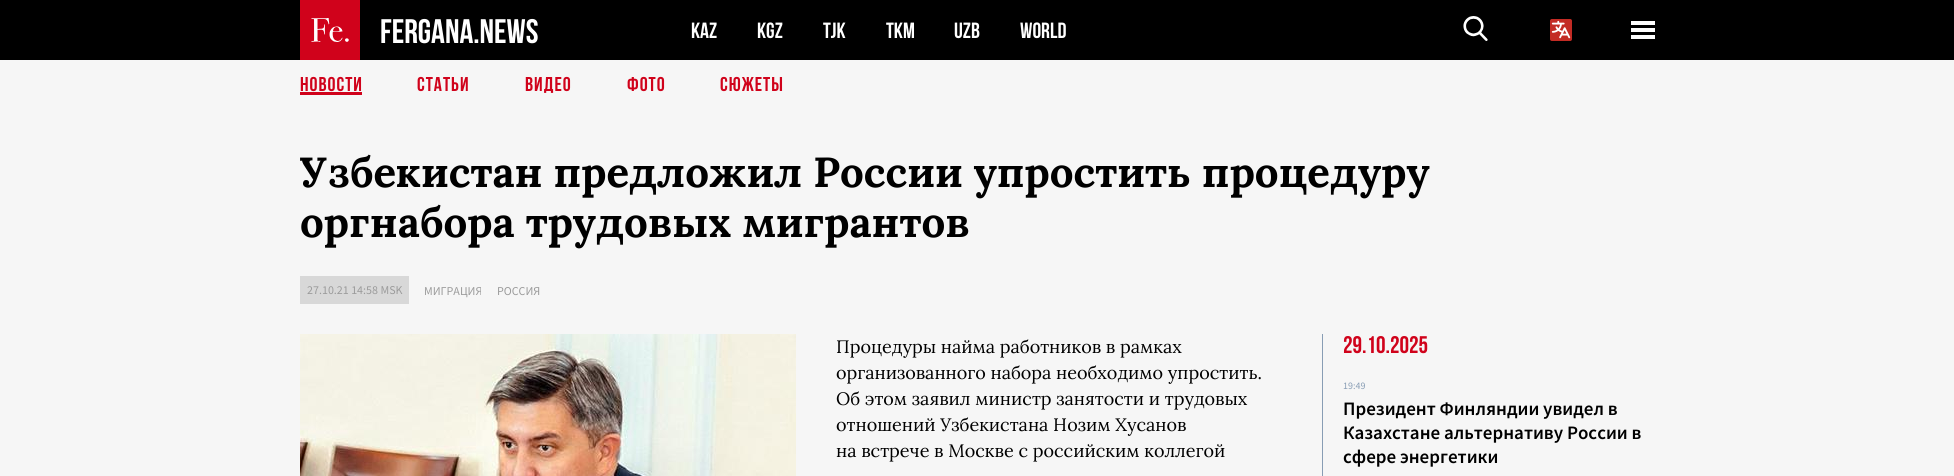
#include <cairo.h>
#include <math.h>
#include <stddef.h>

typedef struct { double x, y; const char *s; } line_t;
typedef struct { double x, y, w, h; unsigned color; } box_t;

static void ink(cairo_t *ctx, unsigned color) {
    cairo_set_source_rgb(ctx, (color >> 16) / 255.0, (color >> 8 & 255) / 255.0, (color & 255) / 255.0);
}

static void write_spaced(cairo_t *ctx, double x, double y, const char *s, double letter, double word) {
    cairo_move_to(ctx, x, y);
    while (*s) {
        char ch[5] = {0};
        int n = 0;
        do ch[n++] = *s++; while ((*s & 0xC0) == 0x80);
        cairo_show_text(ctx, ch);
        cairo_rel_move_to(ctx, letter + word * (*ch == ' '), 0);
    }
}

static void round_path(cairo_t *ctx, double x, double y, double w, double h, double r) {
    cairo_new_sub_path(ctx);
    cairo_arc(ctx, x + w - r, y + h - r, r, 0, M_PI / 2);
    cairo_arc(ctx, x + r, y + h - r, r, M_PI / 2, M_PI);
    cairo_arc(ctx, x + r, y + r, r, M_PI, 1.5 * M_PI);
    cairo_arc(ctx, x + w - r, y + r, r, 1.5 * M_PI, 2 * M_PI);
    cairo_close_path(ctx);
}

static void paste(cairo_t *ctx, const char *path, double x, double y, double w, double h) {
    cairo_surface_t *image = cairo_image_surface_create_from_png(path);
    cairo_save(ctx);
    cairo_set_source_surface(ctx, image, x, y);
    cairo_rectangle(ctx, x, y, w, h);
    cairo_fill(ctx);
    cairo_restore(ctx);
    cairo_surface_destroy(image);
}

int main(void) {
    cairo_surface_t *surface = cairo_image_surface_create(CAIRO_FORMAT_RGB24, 1954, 476);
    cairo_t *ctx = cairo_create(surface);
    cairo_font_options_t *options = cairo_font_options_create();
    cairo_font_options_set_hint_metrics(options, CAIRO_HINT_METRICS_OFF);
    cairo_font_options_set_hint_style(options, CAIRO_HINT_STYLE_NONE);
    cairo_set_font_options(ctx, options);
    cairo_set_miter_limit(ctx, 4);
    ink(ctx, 0xF6F6F6);
    cairo_paint(ctx);
    ink(ctx, 0x000000);
    cairo_rectangle(ctx, 0, 0, 1954, 60);
    cairo_fill(ctx);
    ink(ctx, 0xD0021B);
    cairo_rectangle(ctx, 300, 0, 60, 60);
    cairo_fill(ctx);
    paste(ctx, "media/1.png", 311, 18, 38, 24);
    cairo_select_font_face(ctx, "Bebas Neue", CAIRO_FONT_SLANT_NORMAL, CAIRO_FONT_WEIGHT_BOLD);
    cairo_set_font_size(ctx, 34);
    ink(ctx, 0xFFFFFF);
    cairo_move_to(ctx, 380, 43);
    cairo_show_text(ctx, "FERGANA.NEWS");
    cairo_set_font_size(ctx, 22);
    {
        static const line_t items[] = {
            {691, 38, "KAZ"},
            {757, 38, "KGZ"},
            {823, 38, "TJK"},
            {886, 38, "TKM"},
            {954, 38, "UZB"},
            {1020, 38, "WORLD"},
        };
        for (size_t i = 0; i < sizeof items / sizeof *items; i++) {
            cairo_move_to(ctx, items[i].x, items[i].y);
            cairo_show_text(ctx, items[i].s);
        }
    }
    paste(ctx, "media/2.png", 1463, 16, 25, 25);
    round_path(ctx, 1550, 19, 22, 22, 5);
    cairo_fill(ctx);
    paste(ctx, "media/3.png", 1550, 19, 22, 22);
    {
        static const box_t items[] = {
            {1631, 21, 24, 4, 0xFFFFFF},
            {1631, 28, 24, 4, 0xFFFFFF},
            {1631, 35, 24, 4, 0xFFFFFF},
        };
        for (size_t i = 0; i < sizeof items / sizeof *items; i++) {
            ink(ctx, items[i].color);
            cairo_rectangle(ctx, items[i].x, items[i].y, items[i].w, items[i].h);
            cairo_fill(ctx);
        }
    }
    cairo_set_font_size(ctx, 20);
    ink(ctx, 0xD0021B);
    write_spaced(ctx, 300, 91, "НОВОСТИ", 1, 0);
    cairo_rectangle(ctx, 300, 92, 62, 3);
    cairo_fill(ctx);
    {
        static const line_t items[] = {
            {417, 91, "СТАТЬИ"},
            {525, 91, "ВИДЕО"},
            {627, 91, "ФОТО"},
            {720, 91, "СЮЖЕТЫ"},
        };
        for (size_t i = 0; i < sizeof items / sizeof *items; i++) {
            write_spaced(ctx, items[i].x, items[i].y, items[i].s, 1, 0);
        }
    }
    cairo_select_font_face(ctx, "Lora", CAIRO_FONT_SLANT_NORMAL, CAIRO_FONT_WEIGHT_BOLD);
    cairo_set_font_size(ctx, 42);
    ink(ctx, 0x000000);
    cairo_move_to(ctx, 300, 187);
    cairo_show_text(ctx, "Узбекистан предложил России упростить процедуру");
    cairo_move_to(ctx, 300, 237);
    cairo_show_text(ctx, "оргнабора трудовых мигрантов");
    ink(ctx, 0xD8D8D8);
    cairo_rectangle(ctx, 300, 276, 109, 28);
    cairo_fill(ctx);
    cairo_select_font_face(ctx, "Source Sans Pro", CAIRO_FONT_SLANT_NORMAL, CAIRO_FONT_WEIGHT_NORMAL);
    cairo_set_font_size(ctx, 12);
    ink(ctx, 0x9B9B9B);
    {
        static const line_t items[] = {
            {307, 294, "27.10.21 14:58 MSK"},
            {424, 295, "МИГРАЦИЯ"},
            {497, 295, "РОССИЯ"},
        };
        for (size_t i = 0; i < sizeof items / sizeof *items; i++) {
            cairo_move_to(ctx, items[i].x, items[i].y);
            cairo_show_text(ctx, items[i].s);
        }
    }
    paste(ctx, "media/4.png", 300, 334, 496, 142);
    cairo_select_font_face(ctx, "Lora", CAIRO_FONT_SLANT_NORMAL, CAIRO_FONT_WEIGHT_NORMAL);
    cairo_set_font_size(ctx, 18);
    ink(ctx, 0x000000);
    {
        static const line_t items[] = {
            {836, 353, "Процедуры найма работников в рамках"},
            {836, 379, "организованного набора необходимо упростить."},
            {836, 405, "Об этом заявил министр занятости и трудовых"},
            {836, 431, "отношений Узбекистана Нозим Хусанов"},
            {836, 457, "на встрече в Москве с российским коллегой"},
        };
        for (size_t i = 0; i < sizeof items / sizeof *items; i++) {
            cairo_move_to(ctx, items[i].x, items[i].y);
            cairo_show_text(ctx, items[i].s);
        }
    }
    ink(ctx, 0x889DB4);
    cairo_rectangle(ctx, 1322, 334, 1, 142);
    cairo_fill(ctx);
    cairo_select_font_face(ctx, "Bebas Neue", CAIRO_FONT_SLANT_NORMAL, CAIRO_FONT_WEIGHT_BOLD);
    cairo_set_font_size(ctx, 24);
    ink(ctx, 0xD0021B);
    cairo_move_to(ctx, 1343, 353);
    cairo_show_text(ctx, "29.10.2025");
    cairo_select_font_face(ctx, "Source Sans Pro", CAIRO_FONT_SLANT_NORMAL, CAIRO_FONT_WEIGHT_NORMAL);
    cairo_set_font_size(ctx, 10);
    ink(ctx, 0x889DB4);
    cairo_move_to(ctx, 1343, 389);
    cairo_show_text(ctx, "19:49");
    cairo_select_font_face(ctx, "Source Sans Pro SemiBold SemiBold", CAIRO_FONT_SLANT_NORMAL, CAIRO_FONT_WEIGHT_NORMAL);
    cairo_set_font_size(ctx, 19);
    ink(ctx, 0x000000);
    {
        static const line_t items[] = {
            {1343, 415, "Президент Финляндии увидел в"},
            {1343, 439, "Казахстане альтернативу России в"},
            {1343, 463, "сфере энергетики"},
        };
        for (size_t i = 0; i < sizeof items / sizeof *items; i++) {
            cairo_move_to(ctx, items[i].x, items[i].y);
            cairo_show_text(ctx, items[i].s);
        }
    }
    cairo_surface_write_to_png(surface, "image.png");
    cairo_font_options_destroy(options);
    cairo_destroy(ctx);
    cairo_surface_destroy(surface);
    return 0;
}
